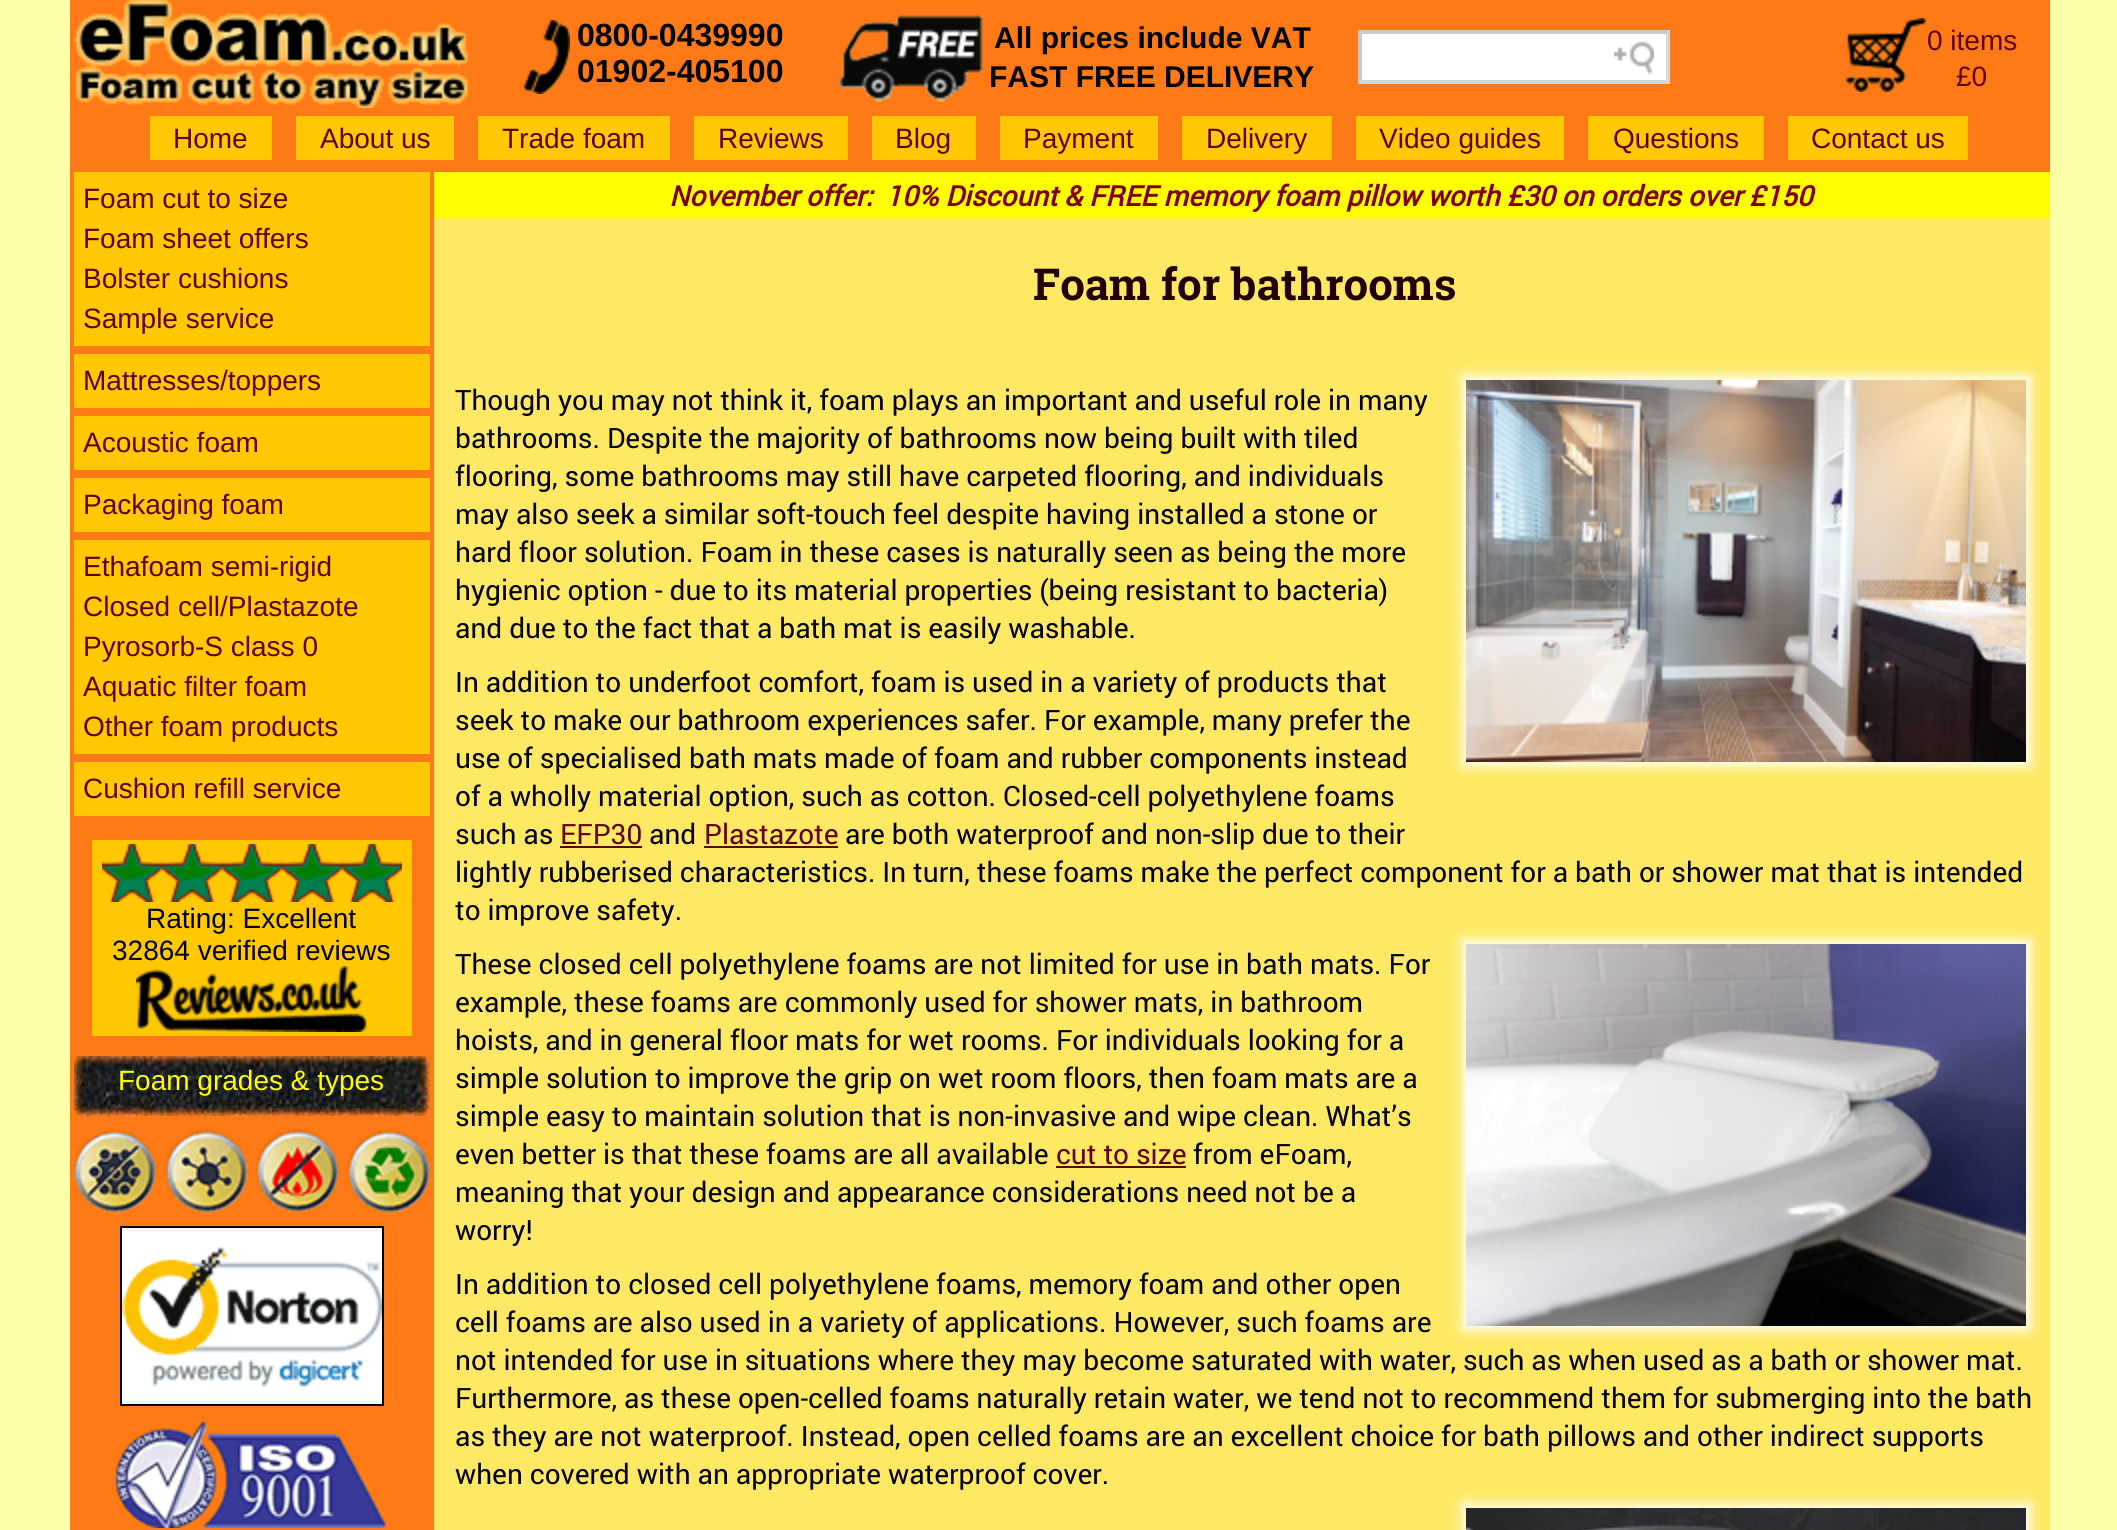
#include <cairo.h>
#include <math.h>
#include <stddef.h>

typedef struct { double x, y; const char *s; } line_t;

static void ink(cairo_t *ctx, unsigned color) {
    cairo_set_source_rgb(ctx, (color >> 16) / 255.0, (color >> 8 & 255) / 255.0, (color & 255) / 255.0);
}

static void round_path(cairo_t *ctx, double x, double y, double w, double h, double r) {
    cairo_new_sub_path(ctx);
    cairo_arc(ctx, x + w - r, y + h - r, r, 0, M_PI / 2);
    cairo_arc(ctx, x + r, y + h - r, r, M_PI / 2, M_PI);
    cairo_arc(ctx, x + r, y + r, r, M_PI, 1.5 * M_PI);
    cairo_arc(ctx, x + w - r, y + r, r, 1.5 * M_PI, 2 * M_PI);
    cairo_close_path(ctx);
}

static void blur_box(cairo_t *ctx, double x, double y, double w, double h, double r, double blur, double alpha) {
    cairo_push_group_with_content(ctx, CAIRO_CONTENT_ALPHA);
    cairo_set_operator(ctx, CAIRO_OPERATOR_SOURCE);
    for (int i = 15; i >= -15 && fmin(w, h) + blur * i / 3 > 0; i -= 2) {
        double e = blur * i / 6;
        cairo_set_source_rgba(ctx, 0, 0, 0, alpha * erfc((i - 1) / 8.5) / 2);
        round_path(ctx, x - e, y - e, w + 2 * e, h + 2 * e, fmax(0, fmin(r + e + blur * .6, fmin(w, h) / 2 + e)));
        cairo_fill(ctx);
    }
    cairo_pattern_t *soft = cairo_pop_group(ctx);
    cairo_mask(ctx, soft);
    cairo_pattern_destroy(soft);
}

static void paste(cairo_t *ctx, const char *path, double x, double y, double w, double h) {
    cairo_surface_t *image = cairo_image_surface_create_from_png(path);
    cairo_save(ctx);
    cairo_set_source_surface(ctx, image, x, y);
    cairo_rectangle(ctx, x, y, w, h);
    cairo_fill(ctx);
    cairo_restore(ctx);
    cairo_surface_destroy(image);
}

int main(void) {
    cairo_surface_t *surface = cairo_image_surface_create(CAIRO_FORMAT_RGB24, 2117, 1530);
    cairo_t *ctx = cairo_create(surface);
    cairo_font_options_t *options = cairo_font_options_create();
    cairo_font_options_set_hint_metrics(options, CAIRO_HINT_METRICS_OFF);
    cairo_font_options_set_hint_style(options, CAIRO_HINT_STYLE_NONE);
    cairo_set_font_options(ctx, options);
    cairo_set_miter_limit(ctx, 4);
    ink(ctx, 0xFFFFAA);
    cairo_paint(ctx);
    ink(ctx, 0xFF7A17);
    cairo_rectangle(ctx, 70, 0, 1980, 1530);
    cairo_fill(ctx);
    paste(ctx, "media/1.png", 74, 0, 394, 108);
    paste(ctx, "media/2.png", 524, 20, 46, 74);
    cairo_select_font_face(ctx, "Liberation Sans", CAIRO_FONT_SLANT_NORMAL, CAIRO_FONT_WEIGHT_BOLD);
    cairo_set_font_size(ctx, 32);
    ink(ctx, 0x000000);
    cairo_move_to(ctx, 577, 46);
    cairo_show_text(ctx, "0800-0439990");
    cairo_move_to(ctx, 577, 82);
    cairo_show_text(ctx, "01902-405100");
    paste(ctx, "media/3.png", 840, 15, 143, 87);
    cairo_set_font_size(ctx, 30);
    cairo_move_to(ctx, 994, 48);
    cairo_show_text(ctx, "All prices include VAT");
    cairo_move_to(ctx, 989, 87);
    cairo_show_text(ctx, "FAST FREE DELIVERY");
    ink(ctx, 0xFFFFFF);
    cairo_rectangle(ctx, 1358, 30, 312, 54);
    cairo_fill(ctx);
    paste(ctx, "media/4.png", 1614, 41, 40, 34);
    ink(ctx, 0xCACACA);
    cairo_new_path(ctx);
    cairo_move_to(ctx, 1358, 30);
    cairo_line_to(ctx, 1670, 30);
    cairo_line_to(ctx, 1666, 34);
    cairo_line_to(ctx, 1362, 34);
    cairo_close_path(ctx);
    cairo_fill(ctx);
    cairo_set_source_rgba(ctx, 0.463, 0.463, 0.463, 0.3);
    cairo_new_path(ctx);
    cairo_move_to(ctx, 1670, 30);
    cairo_line_to(ctx, 1670, 84);
    cairo_line_to(ctx, 1666, 80);
    cairo_line_to(ctx, 1666, 34);
    cairo_close_path(ctx);
    cairo_fill(ctx);
    cairo_new_path(ctx);
    cairo_move_to(ctx, 1670, 84);
    cairo_line_to(ctx, 1358, 84);
    cairo_line_to(ctx, 1362, 80);
    cairo_line_to(ctx, 1666, 80);
    cairo_close_path(ctx);
    cairo_fill(ctx);
    cairo_set_source_rgba(ctx, 0.31, 0.31, 0.31, 0.3);
    cairo_new_path(ctx);
    cairo_move_to(ctx, 1358, 84);
    cairo_line_to(ctx, 1358, 30);
    cairo_line_to(ctx, 1362, 34);
    cairo_line_to(ctx, 1362, 80);
    cairo_close_path(ctx);
    cairo_fill(ctx);
    paste(ctx, "media/5.png", 1846, 18, 80, 74);
    cairo_select_font_face(ctx, "Liberation Sans", CAIRO_FONT_SLANT_NORMAL, CAIRO_FONT_WEIGHT_NORMAL);
    cairo_set_font_size(ctx, 28);
    ink(ctx, 0x600000);
    cairo_move_to(ctx, 1927, 50);
    cairo_show_text(ctx, "0 items");
    cairo_move_to(ctx, 1956, 86);
    cairo_show_text(ctx, "£0");
    ink(ctx, 0xFFC800);
    cairo_rectangle(ctx, 150, 116, 122, 44);
    cairo_fill(ctx);
    ink(ctx, 0x600000);
    cairo_move_to(ctx, 173, 148);
    cairo_show_text(ctx, "Home");
    ink(ctx, 0xFFC800);
    cairo_rectangle(ctx, 296, 116, 158, 44);
    cairo_fill(ctx);
    ink(ctx, 0x600000);
    cairo_move_to(ctx, 320, 148);
    cairo_show_text(ctx, "About us");
    ink(ctx, 0xFFC800);
    cairo_rectangle(ctx, 478, 116, 192, 44);
    cairo_fill(ctx);
    ink(ctx, 0x600000);
    cairo_move_to(ctx, 502, 148);
    cairo_show_text(ctx, "Trade foam");
    ink(ctx, 0xFFC800);
    cairo_rectangle(ctx, 694, 116, 154, 44);
    cairo_fill(ctx);
    ink(ctx, 0x600000);
    cairo_move_to(ctx, 718, 148);
    cairo_show_text(ctx, "Reviews");
    ink(ctx, 0xFFC800);
    cairo_rectangle(ctx, 872, 116, 104, 44);
    cairo_fill(ctx);
    ink(ctx, 0x600000);
    cairo_move_to(ctx, 895, 148);
    cairo_show_text(ctx, "Blog");
    ink(ctx, 0xFFC800);
    cairo_rectangle(ctx, 1000, 116, 158, 44);
    cairo_fill(ctx);
    ink(ctx, 0x600000);
    cairo_move_to(ctx, 1023, 148);
    cairo_show_text(ctx, "Payment");
    ink(ctx, 0xFFC800);
    cairo_rectangle(ctx, 1182, 116, 150, 44);
    cairo_fill(ctx);
    ink(ctx, 0x600000);
    cairo_move_to(ctx, 1206, 148);
    cairo_show_text(ctx, "Delivery");
    ink(ctx, 0xFFC800);
    cairo_rectangle(ctx, 1356, 116, 208, 44);
    cairo_fill(ctx);
    ink(ctx, 0x600000);
    cairo_move_to(ctx, 1379, 148);
    cairo_show_text(ctx, "Video guides");
    ink(ctx, 0xFFC800);
    cairo_rectangle(ctx, 1588, 116, 176, 44);
    cairo_fill(ctx);
    ink(ctx, 0x600000);
    cairo_move_to(ctx, 1613, 148);
    cairo_show_text(ctx, "Questions");
    ink(ctx, 0xFFC800);
    cairo_rectangle(ctx, 1788, 116, 180, 44);
    cairo_fill(ctx);
    ink(ctx, 0x600000);
    cairo_move_to(ctx, 1811, 148);
    cairo_show_text(ctx, "Contact us");
    ink(ctx, 0xFFC800);
    cairo_rectangle(ctx, 74, 172, 356, 174);
    cairo_fill(ctx);
    ink(ctx, 0x600000);
    {
        static const line_t items[] = {
            {83, 208, "Foam cut to size"},
            {83, 248, "Foam sheet offers"},
            {83, 288, "Bolster cushions"},
            {83, 328, "Sample service"},
        };
        for (size_t i = 0; i < sizeof items / sizeof *items; i++) {
            cairo_move_to(ctx, items[i].x, items[i].y);
            cairo_show_text(ctx, items[i].s);
        }
    }
    ink(ctx, 0xFFC800);
    cairo_rectangle(ctx, 74, 354, 356, 54);
    cairo_fill(ctx);
    ink(ctx, 0x600000);
    cairo_move_to(ctx, 83, 390);
    cairo_show_text(ctx, "Mattresses/toppers");
    ink(ctx, 0xFFC800);
    cairo_rectangle(ctx, 74, 416, 356, 54);
    cairo_fill(ctx);
    ink(ctx, 0x600000);
    cairo_move_to(ctx, 83, 452);
    cairo_show_text(ctx, "Acoustic foam");
    ink(ctx, 0xFFC800);
    cairo_rectangle(ctx, 74, 478, 356, 54);
    cairo_fill(ctx);
    ink(ctx, 0x600000);
    cairo_move_to(ctx, 83, 514);
    cairo_show_text(ctx, "Packaging foam");
    ink(ctx, 0xFFC800);
    cairo_rectangle(ctx, 74, 540, 356, 214);
    cairo_fill(ctx);
    ink(ctx, 0x600000);
    {
        static const line_t items[] = {
            {83, 576, "Ethafoam semi-rigid"},
            {83, 616, "Closed cell/Plastazote"},
            {83, 656, "Pyrosorb-S class 0"},
            {83, 696, "Aquatic filter foam"},
            {83, 736, "Other foam products"},
        };
        for (size_t i = 0; i < sizeof items / sizeof *items; i++) {
            cairo_move_to(ctx, items[i].x, items[i].y);
            cairo_show_text(ctx, items[i].s);
        }
    }
    ink(ctx, 0xFFC800);
    cairo_rectangle(ctx, 74, 762, 356, 54);
    cairo_fill(ctx);
    ink(ctx, 0x600000);
    cairo_move_to(ctx, 83, 798);
    cairo_show_text(ctx, "Cushion refill service");
    ink(ctx, 0xFFC800);
    cairo_rectangle(ctx, 92, 840, 320, 196);
    cairo_fill(ctx);
    paste(ctx, "media/6.png", 102, 844, 300, 58);
    ink(ctx, 0x000000);
    cairo_move_to(ctx, 146, 928);
    cairo_show_text(ctx, "Rating: Excellent");
    cairo_move_to(ctx, 112, 960);
    cairo_show_text(ctx, "32864 verified reviews");
    paste(ctx, "media/7.png", 136, 966, 231, 66);
    paste(ctx, "media/8.png", 74, 1056, 356, 60);
    ink(ctx, 0xFFFF00);
    cairo_move_to(ctx, 118, 1090);
    cairo_show_text(ctx, "Foam grades & types");
    paste(ctx, "media/9.png", 74, 1128, 356, 86);
    cairo_rectangle(ctx, 121, 1227, 262, 178);
    ink(ctx, 0x000000);
    cairo_stroke(ctx);
    paste(ctx, "media/10.png", 122, 1228, 260, 176);
    paste(ctx, "media/11.png", 116, 1422, 270, 106);
    ink(ctx, 0xFFE964);
    cairo_rectangle(ctx, 434, 218, 1616, 1312);
    cairo_fill(ctx);
    ink(ctx, 0xFFFF00);
    cairo_rectangle(ctx, 434, 172, 1616, 46);
    cairo_fill(ctx);
    cairo_select_font_face(ctx, "Roboto", CAIRO_FONT_SLANT_ITALIC, CAIRO_FONT_WEIGHT_BOLD);
    ink(ctx, 0x800000);
    cairo_move_to(ctx, 669, 206);
    cairo_show_text(ctx, "November offer:");
    cairo_move_to(ctx, 886, 206);
    cairo_show_text(ctx, "10% Discount & FREE memory foam pillow worth £30 on orders over £150");
    cairo_select_font_face(ctx, "Roboto Slab", CAIRO_FONT_SLANT_NORMAL, CAIRO_FONT_WEIGHT_BOLD);
    cairo_set_font_size(ctx, 44);
    ink(ctx, 0x200000);
    cairo_move_to(ctx, 1033, 300);
    cairo_show_text(ctx, "Foam for bathrooms");
    cairo_select_font_face(ctx, "Roboto", CAIRO_FONT_SLANT_NORMAL, CAIRO_FONT_WEIGHT_NORMAL);
    cairo_set_font_size(ctx, 28);
    ink(ctx, 0x000000);
    {
        static const line_t items[] = {
            {455, 410, "Though you may not think it, foam plays an important and useful role in many"},
            {455, 448, "bathrooms. Despite the majority of bathrooms now being built with tiled"},
            {455, 486, "flooring, some bathrooms may still have carpeted flooring, and individuals"},
            {455, 524, "may also seek a similar soft-touch feel despite having installed a stone or"},
            {455, 562, "hard floor solution. Foam in these cases is naturally seen as being the more"},
            {455, 600, "hygienic option - due to its material properties (being resistant to bacteria)"},
            {455, 638, "and due to the fact that a bath mat is easily washable."},
        };
        for (size_t i = 0; i < sizeof items / sizeof *items; i++) {
            cairo_move_to(ctx, items[i].x, items[i].y);
            cairo_show_text(ctx, items[i].s);
        }
    }
    ink(ctx, 0xFFFFFF);
    blur_box(ctx, 1462, 376, 568, 390, 0, 6, 1);
    paste(ctx, "media/12.png", 1466, 380, 560, 382);
    ink(ctx, 0x000000);
    {
        static const line_t items[] = {
            {455, 692, "In addition to underfoot comfort, foam is used in a variety of products that"},
            {455, 730, "seek to make our bathroom experiences safer. For example, many prefer the"},
            {455, 768, "use of specialised bath mats made of foam and rubber components instead"},
            {455, 806, "of a wholly material option, such as cotton. Closed-cell polyethylene foams"},
            {455, 844, "such as"},
        };
        for (size_t i = 0; i < sizeof items / sizeof *items; i++) {
            cairo_move_to(ctx, items[i].x, items[i].y);
            cairo_show_text(ctx, items[i].s);
        }
    }
    ink(ctx, 0x600000);
    cairo_move_to(ctx, 560, 844);
    cairo_show_text(ctx, "EFP30");
    cairo_rectangle(ctx, 560, 846, 82, 2);
    cairo_fill(ctx);
    ink(ctx, 0x000000);
    cairo_move_to(ctx, 649, 844);
    cairo_show_text(ctx, "and");
    ink(ctx, 0x600000);
    cairo_move_to(ctx, 704, 844);
    cairo_show_text(ctx, "Plastazote");
    cairo_rectangle(ctx, 704, 846, 134, 2);
    cairo_fill(ctx);
    ink(ctx, 0x000000);
    {
        static const line_t items[] = {
            {845, 844, "are both waterproof and non-slip due to their"},
            {455, 882, "lightly rubberised characteristics. In turn, these foams make the perfect component for a bath or shower mat that is intended"},
            {455, 920, "to improve safety."},
            {455, 974, "These closed cell polyethylene foams are not limited for use in bath mats. For"},
            {455, 1012, "example, these foams are commonly used for shower mats, in bathroom"},
            {455, 1050, "hoists, and in general floor mats for wet rooms. For individuals looking for a"},
            {455, 1088, "simple solution to improve the grip on wet room floors, then foam mats are a"},
            {455, 1126, "simple easy to maintain solution that is non-invasive and wipe clean. What’s"},
            {455, 1164, "even better is that these foams are all available"},
        };
        for (size_t i = 0; i < sizeof items / sizeof *items; i++) {
            cairo_move_to(ctx, items[i].x, items[i].y);
            cairo_show_text(ctx, items[i].s);
        }
    }
    ink(ctx, 0x600000);
    cairo_move_to(ctx, 1056, 1164);
    cairo_show_text(ctx, "cut to size");
    cairo_rectangle(ctx, 1056, 1166, 130, 2);
    cairo_fill(ctx);
    ink(ctx, 0x000000);
    {
        static const line_t items[] = {
            {1193, 1164, "from eFoam,"},
            {455, 1202, "meaning that your design and appearance considerations need not be a"},
            {455, 1240, "worry!"},
        };
        for (size_t i = 0; i < sizeof items / sizeof *items; i++) {
            cairo_move_to(ctx, items[i].x, items[i].y);
            cairo_show_text(ctx, items[i].s);
        }
    }
    ink(ctx, 0xFFFFFF);
    blur_box(ctx, 1462, 940, 568, 390, 0, 6, 1);
    paste(ctx, "media/13.png", 1466, 944, 560, 382);
    ink(ctx, 0x000000);
    {
        static const line_t items[] = {
            {455, 1294, "In addition to closed cell polyethylene foams, memory foam and other open"},
            {455, 1332, "cell foams are also used in a variety of applications. However, such foams are"},
            {455, 1370, "not intended for use in situations where they may become saturated with water, such as when used as a bath or shower mat."},
            {455, 1408, "Furthermore, as these open-celled foams naturally retain water, we tend not to recommend them for submerging into the bath"},
            {455, 1446, "as they are not waterproof. Instead, open celled foams are an excellent choice for bath pillows and other indirect supports"},
            {455, 1484, "when covered with an appropriate waterproof cover."},
        };
        for (size_t i = 0; i < sizeof items / sizeof *items; i++) {
            cairo_move_to(ctx, items[i].x, items[i].y);
            cairo_show_text(ctx, items[i].s);
        }
    }
    ink(ctx, 0xFFFFFF);
    blur_box(ctx, 1462, 1504, 568, 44, 0, 6, 1);
    paste(ctx, "media/14.png", 1466, 1508, 560, 22);
    cairo_surface_write_to_png(surface, "image.png");
    cairo_font_options_destroy(options);
    cairo_destroy(ctx);
    cairo_surface_destroy(surface);
    return 0;
}
